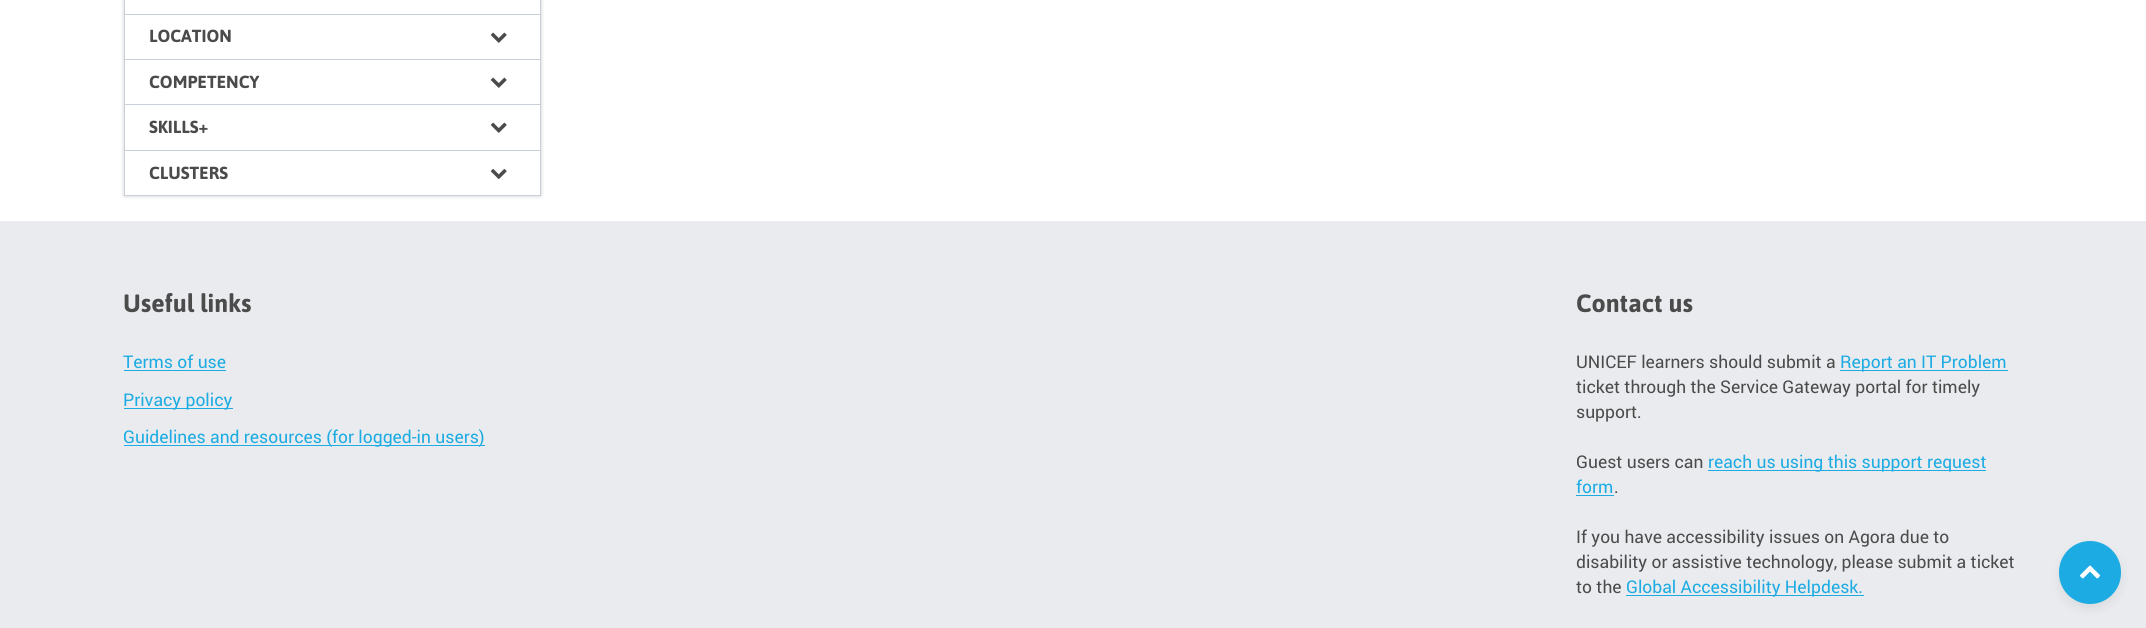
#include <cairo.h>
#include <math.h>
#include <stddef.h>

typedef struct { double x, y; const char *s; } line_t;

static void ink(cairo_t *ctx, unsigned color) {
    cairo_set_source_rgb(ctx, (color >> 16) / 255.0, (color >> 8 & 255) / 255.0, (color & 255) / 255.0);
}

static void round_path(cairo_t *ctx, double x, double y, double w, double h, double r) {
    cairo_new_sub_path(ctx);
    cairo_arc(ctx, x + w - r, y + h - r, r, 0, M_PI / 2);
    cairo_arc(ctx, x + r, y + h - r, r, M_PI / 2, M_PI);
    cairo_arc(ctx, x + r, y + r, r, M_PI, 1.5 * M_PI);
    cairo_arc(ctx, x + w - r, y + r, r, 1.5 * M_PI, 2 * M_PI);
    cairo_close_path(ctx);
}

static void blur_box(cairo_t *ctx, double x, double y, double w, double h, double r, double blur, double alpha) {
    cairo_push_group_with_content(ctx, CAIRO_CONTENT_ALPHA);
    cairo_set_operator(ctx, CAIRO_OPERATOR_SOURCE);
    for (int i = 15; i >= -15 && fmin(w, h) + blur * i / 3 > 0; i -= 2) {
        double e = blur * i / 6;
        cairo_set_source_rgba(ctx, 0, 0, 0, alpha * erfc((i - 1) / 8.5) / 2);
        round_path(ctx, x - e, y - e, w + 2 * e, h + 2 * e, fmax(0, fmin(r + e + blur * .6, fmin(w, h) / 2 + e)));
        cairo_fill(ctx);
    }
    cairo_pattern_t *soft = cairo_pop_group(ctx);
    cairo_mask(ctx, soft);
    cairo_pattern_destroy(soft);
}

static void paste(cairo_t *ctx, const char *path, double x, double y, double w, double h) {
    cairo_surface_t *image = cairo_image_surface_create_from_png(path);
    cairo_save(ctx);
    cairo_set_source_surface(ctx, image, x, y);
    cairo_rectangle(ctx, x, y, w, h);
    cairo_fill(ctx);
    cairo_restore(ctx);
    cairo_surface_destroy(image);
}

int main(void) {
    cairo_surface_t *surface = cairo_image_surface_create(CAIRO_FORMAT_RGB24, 2146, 628);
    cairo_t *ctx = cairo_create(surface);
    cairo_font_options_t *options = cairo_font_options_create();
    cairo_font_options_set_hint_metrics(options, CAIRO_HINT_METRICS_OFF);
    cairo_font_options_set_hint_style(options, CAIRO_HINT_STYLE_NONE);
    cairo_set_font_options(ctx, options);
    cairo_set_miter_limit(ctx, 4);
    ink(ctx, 0xFFFFFF);
    cairo_paint(ctx);
    cairo_save(ctx);
    cairo_set_fill_rule(ctx, CAIRO_FILL_RULE_EVEN_ODD);
    cairo_new_path(ctx);
    cairo_move_to(ctx, 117, 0);
    cairo_line_to(ctx, 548, 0);
    cairo_line_to(ctx, 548, 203);
    cairo_line_to(ctx, 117, 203);
    cairo_close_path(ctx);
    cairo_move_to(ctx, 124, -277);
    cairo_line_to(ctx, 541, -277);
    cairo_line_to(ctx, 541, 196);
    cairo_line_to(ctx, 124, 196);
    cairo_close_path(ctx);
    cairo_clip(ctx);
    ink(ctx, 0x000000);
    blur_box(ctx, 124, -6, 417, 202, 0, 2, 0.2);
    cairo_restore(ctx);
    cairo_rectangle(ctx, 124.5, -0.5, 416, 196);
    ink(ctx, 0xC8CFD6);
    cairo_set_line_width(ctx, 1);
    cairo_stroke(ctx);
    cairo_rectangle(ctx, 125, 14, 415, 1);
    cairo_fill(ctx);
    cairo_select_font_face(ctx, "Asap", CAIRO_FONT_SLANT_NORMAL, CAIRO_FONT_WEIGHT_BOLD);
    cairo_set_font_size(ctx, 17.5);
    ink(ctx, 0x4B4B4B);
    cairo_move_to(ctx, 149, 42);
    cairo_show_text(ctx, "LOCATION");
    paste(ctx, "media/1.png", 490, 32, 17, 11);
    ink(ctx, 0xC8CFD6);
    cairo_rectangle(ctx, 125, 59, 415, 1);
    cairo_fill(ctx);
    ink(ctx, 0x4B4B4B);
    cairo_move_to(ctx, 149, 88);
    cairo_show_text(ctx, "COMPETENCY");
    paste(ctx, "media/1.png", 490, 77, 17, 11);
    ink(ctx, 0xC8CFD6);
    cairo_rectangle(ctx, 125, 104, 415, 1);
    cairo_fill(ctx);
    ink(ctx, 0x4B4B4B);
    cairo_move_to(ctx, 149, 133);
    cairo_show_text(ctx, "SKILLS+");
    paste(ctx, "media/1.png", 490, 122, 17, 11);
    ink(ctx, 0xC8CFD6);
    cairo_rectangle(ctx, 125, 150, 415, 1);
    cairo_fill(ctx);
    ink(ctx, 0x4B4B4B);
    cairo_move_to(ctx, 149, 179);
    cairo_show_text(ctx, "CLUSTERS");
    paste(ctx, "media/2.png", 490, 169, 17, 10);
    ink(ctx, 0xE9EBEE);
    cairo_rectangle(ctx, 0, 221, 2146, 407);
    cairo_fill(ctx);
    cairo_set_font_size(ctx, 25);
    ink(ctx, 0x4B4B4B);
    cairo_move_to(ctx, 123, 312);
    cairo_show_text(ctx, "Useful links");
    cairo_select_font_face(ctx, "Roboto", CAIRO_FONT_SLANT_NORMAL, CAIRO_FONT_WEIGHT_NORMAL);
    cairo_set_font_size(ctx, 17.5);
    ink(ctx, 0x1CABE2);
    cairo_move_to(ctx, 123, 368);
    cairo_show_text(ctx, "Terms of use");
    cairo_rectangle(ctx, 124, 370, 102, 1);
    cairo_fill(ctx);
    cairo_rectangle(ctx, 124, 408, 109, 1);
    cairo_fill(ctx);
    cairo_move_to(ctx, 123, 406);
    cairo_show_text(ctx, "Privacy policy");
    cairo_rectangle(ctx, 124, 445, 361, 1);
    cairo_fill(ctx);
    cairo_move_to(ctx, 123, 443);
    cairo_show_text(ctx, "Guidelines and resources (for logged-in users)");
    cairo_select_font_face(ctx, "Asap", CAIRO_FONT_SLANT_NORMAL, CAIRO_FONT_WEIGHT_BOLD);
    cairo_set_font_size(ctx, 25);
    ink(ctx, 0x4B4B4B);
    cairo_move_to(ctx, 1576, 312);
    cairo_show_text(ctx, "Contact us");
    cairo_select_font_face(ctx, "Roboto", CAIRO_FONT_SLANT_NORMAL, CAIRO_FONT_WEIGHT_NORMAL);
    cairo_set_font_size(ctx, 17.5);
    cairo_move_to(ctx, 1576, 368);
    cairo_show_text(ctx, "UNICEF learners should submit a");
    ink(ctx, 0x1CABE2);
    cairo_rectangle(ctx, 1840, 370, 168, 1);
    cairo_fill(ctx);
    cairo_move_to(ctx, 1840, 368);
    cairo_show_text(ctx, "Report an IT Problem");
    ink(ctx, 0x4B4B4B);
    {
        static const line_t items[] = {
            {1576, 393, "ticket through the Service Gateway portal for timely"},
            {1576, 418, "support."},
            {1576, 468, "Guest users can"},
        };
        for (size_t i = 0; i < sizeof items / sizeof *items; i++) {
            cairo_move_to(ctx, items[i].x, items[i].y);
            cairo_show_text(ctx, items[i].s);
        }
    }
    ink(ctx, 0x1CABE2);
    cairo_rectangle(ctx, 1708, 470, 278, 1);
    cairo_fill(ctx);
    cairo_move_to(ctx, 1708, 468);
    cairo_show_text(ctx, "reach us using this support request");
    cairo_move_to(ctx, 1576, 493);
    cairo_show_text(ctx, "form");
    cairo_rectangle(ctx, 1576, 495, 38, 1);
    cairo_fill(ctx);
    ink(ctx, 0x4B4B4B);
    {
        static const line_t items[] = {
            {1614, 493, "."},
            {1576, 543, "If you have accessibility issues on Agora due to"},
            {1576, 568, "disability or assistive technology, please submit a ticket"},
            {1576, 593, "to the"},
        };
        for (size_t i = 0; i < sizeof items / sizeof *items; i++) {
            cairo_move_to(ctx, items[i].x, items[i].y);
            cairo_show_text(ctx, items[i].s);
        }
    }
    ink(ctx, 0x1CABE2);
    cairo_rectangle(ctx, 1626, 595, 238, 1);
    cairo_fill(ctx);
    cairo_move_to(ctx, 1626, 593);
    cairo_show_text(ctx, "Global Accessibility Helpdesk.");
    ink(ctx, 0x000000);
    blur_box(ctx, 2059, 546, 62, 63, 31, 5.5, 0.07);
    ink(ctx, 0x1CABE2);
    round_path(ctx, 2059, 541, 62, 63, 31);
    cairo_fill(ctx);
    paste(ctx, "media/3.png", 2079, 565, 22, 14);
    cairo_surface_write_to_png(surface, "image.png");
    cairo_font_options_destroy(options);
    cairo_destroy(ctx);
    cairo_surface_destroy(surface);
    return 0;
}
